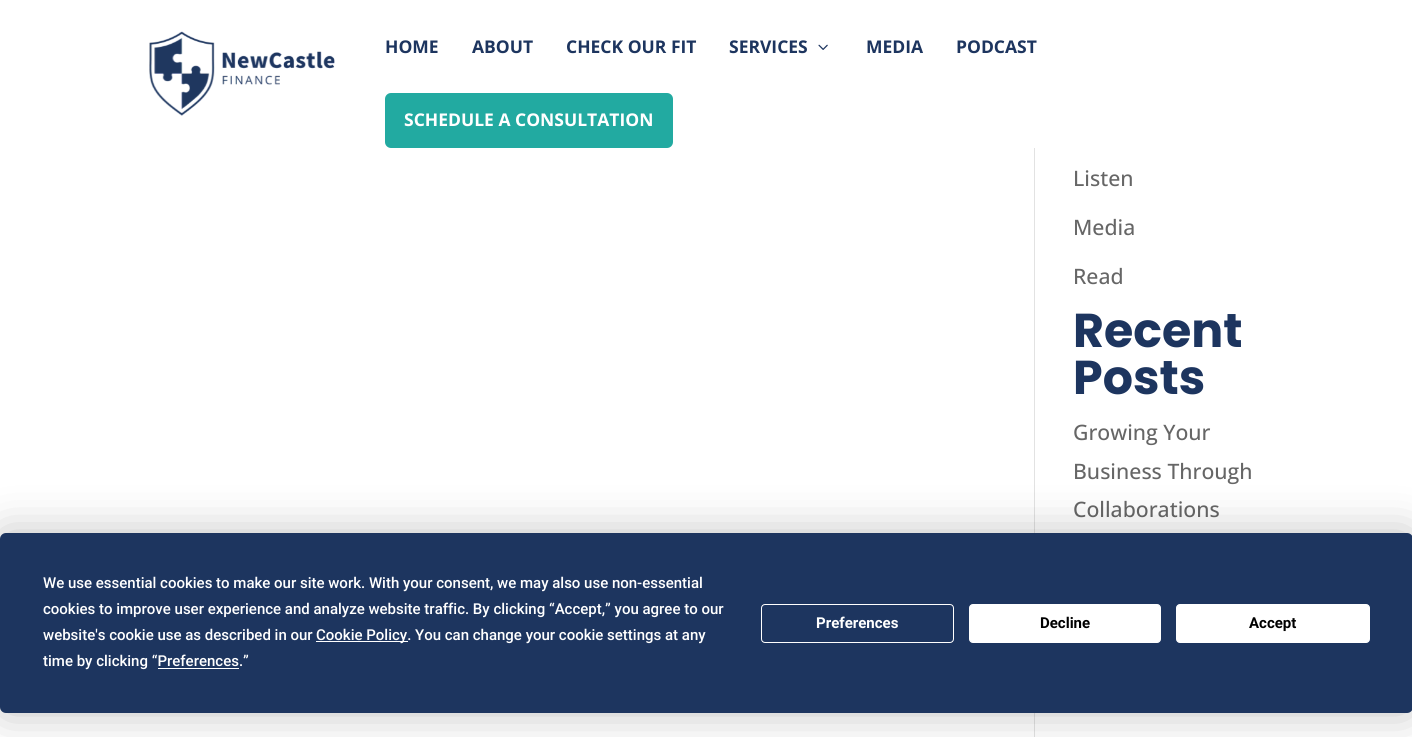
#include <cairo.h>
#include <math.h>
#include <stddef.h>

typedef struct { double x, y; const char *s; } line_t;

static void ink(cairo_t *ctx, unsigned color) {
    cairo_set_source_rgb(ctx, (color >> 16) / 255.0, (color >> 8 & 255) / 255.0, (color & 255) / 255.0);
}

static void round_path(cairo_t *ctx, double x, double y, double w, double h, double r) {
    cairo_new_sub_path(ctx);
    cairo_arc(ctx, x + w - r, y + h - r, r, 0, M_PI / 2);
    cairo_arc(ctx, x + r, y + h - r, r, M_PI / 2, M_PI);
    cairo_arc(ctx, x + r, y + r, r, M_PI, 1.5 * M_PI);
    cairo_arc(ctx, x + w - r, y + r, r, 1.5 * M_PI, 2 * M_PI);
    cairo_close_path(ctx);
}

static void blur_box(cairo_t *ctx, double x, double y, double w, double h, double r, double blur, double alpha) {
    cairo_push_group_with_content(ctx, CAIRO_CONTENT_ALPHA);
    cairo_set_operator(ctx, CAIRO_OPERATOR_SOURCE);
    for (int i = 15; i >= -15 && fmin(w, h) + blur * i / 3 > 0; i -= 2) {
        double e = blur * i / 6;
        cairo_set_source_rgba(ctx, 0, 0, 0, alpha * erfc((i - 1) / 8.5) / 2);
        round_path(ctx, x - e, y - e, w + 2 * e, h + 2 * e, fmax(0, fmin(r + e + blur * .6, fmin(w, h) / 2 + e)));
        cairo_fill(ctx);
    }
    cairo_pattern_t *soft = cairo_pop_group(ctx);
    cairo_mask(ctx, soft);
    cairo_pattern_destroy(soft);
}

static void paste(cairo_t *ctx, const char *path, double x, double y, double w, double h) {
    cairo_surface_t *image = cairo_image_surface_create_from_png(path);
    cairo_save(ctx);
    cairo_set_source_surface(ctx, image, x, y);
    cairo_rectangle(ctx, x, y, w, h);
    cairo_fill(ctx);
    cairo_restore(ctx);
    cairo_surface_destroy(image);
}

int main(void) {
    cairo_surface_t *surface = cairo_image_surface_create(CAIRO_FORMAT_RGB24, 1412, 737);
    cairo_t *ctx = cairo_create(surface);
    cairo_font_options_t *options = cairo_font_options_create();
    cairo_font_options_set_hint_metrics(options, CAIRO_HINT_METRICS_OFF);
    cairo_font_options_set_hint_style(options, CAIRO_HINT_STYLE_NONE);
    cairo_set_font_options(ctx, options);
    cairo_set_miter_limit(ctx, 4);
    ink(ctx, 0xFFFFFF);
    cairo_paint(ctx);
    paste(ctx, "media/1.png", 149, 31, 186, 85);
    cairo_select_font_face(ctx, "Open Sans", CAIRO_FONT_SLANT_NORMAL, CAIRO_FONT_WEIGHT_BOLD);
    cairo_set_font_size(ctx, 17.5);
    ink(ctx, 0x1D355F);
    {
        static const line_t items[] = {
            {385, 53, "HOME"},
            {472, 53, "ABOUT"},
            {566, 53, "CHECK OUR FIT"},
            {729, 53, "SERVICES"},
        };
        for (size_t i = 0; i < sizeof items / sizeof *items; i++) {
            cairo_move_to(ctx, items[i].x, items[i].y);
            cairo_show_text(ctx, items[i].s);
        }
    }
    paste(ctx, "media/2.png", 818, 44, 10, 6);
    cairo_move_to(ctx, 866, 53);
    cairo_show_text(ctx, "MEDIA");
    cairo_move_to(ctx, 956, 53);
    cairo_show_text(ctx, "PODCAST");
    ink(ctx, 0x22AAA1);
    round_path(ctx, 385, 93, 288, 55, 6);
    cairo_fill(ctx);
    ink(ctx, 0xFFFFFF);
    cairo_move_to(ctx, 404, 126);
    cairo_show_text(ctx, "SCHEDULE A CONSULTATION");
    ink(ctx, 0xE2E2E2);
    cairo_rectangle(ctx, 1034, 148, 1, 589);
    cairo_fill(ctx);
    cairo_select_font_face(ctx, "Open Sans Medium", CAIRO_FONT_SLANT_NORMAL, CAIRO_FONT_WEIGHT_NORMAL);
    cairo_set_font_size(ctx, 21.25);
    ink(ctx, 0x666666);
    {
        static const line_t items[] = {
            {1073, 186, "Listen"},
            {1073, 235, "Media"},
            {1073, 284, "Read"},
        };
        for (size_t i = 0; i < sizeof items / sizeof *items; i++) {
            cairo_move_to(ctx, items[i].x, items[i].y);
            cairo_show_text(ctx, items[i].s);
        }
    }
    cairo_select_font_face(ctx, "Poppins", CAIRO_FONT_SLANT_NORMAL, CAIRO_FONT_WEIGHT_BOLD);
    cairo_set_font_size(ctx, 47.5);
    ink(ctx, 0x1D355F);
    cairo_move_to(ctx, 1073, 347);
    cairo_show_text(ctx, "Recent");
    cairo_move_to(ctx, 1073, 394);
    cairo_show_text(ctx, "Posts");
    cairo_select_font_face(ctx, "Open Sans Medium", CAIRO_FONT_SLANT_NORMAL, CAIRO_FONT_WEIGHT_NORMAL);
    cairo_set_font_size(ctx, 21.25);
    ink(ctx, 0x666666);
    {
        static const line_t items[] = {
            {1073, 440, "Growing Your"},
            {1073, 479, "Business Through"},
            {1073, 517, "Collaborations"},
        };
        for (size_t i = 0; i < sizeof items / sizeof *items; i++) {
            cairo_move_to(ctx, items[i].x, items[i].y);
            cairo_show_text(ctx, items[i].s);
        }
    }
    ink(ctx, 0x000000);
    blur_box(ctx, 0, 533, 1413, 180, 6, 22, 0.25);
    ink(ctx, 0x1D355F);
    round_path(ctx, 0, 533, 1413, 180, 6);
    cairo_fill(ctx);
    cairo_select_font_face(ctx, "Roboto Medium", CAIRO_FONT_SLANT_NORMAL, CAIRO_FONT_WEIGHT_NORMAL);
    cairo_set_font_size(ctx, 15);
    ink(ctx, 0xFFFFFF);
    {
        static const line_t items[] = {
            {43, 588, "We use essential cookies to make our site work. With your consent, we may also use non-essential"},
            {43, 614, "cookies to improve user experience and analyze website traffic. By clicking “Accept,” you agree to our"},
            {43, 640, "website's cookie use as described in our"},
        };
        for (size_t i = 0; i < sizeof items / sizeof *items; i++) {
            cairo_move_to(ctx, items[i].x, items[i].y);
            cairo_show_text(ctx, items[i].s);
        }
    }
    cairo_rectangle(ctx, 316, 641, 92, 1);
    cairo_fill(ctx);
    cairo_move_to(ctx, 316, 640);
    cairo_show_text(ctx, "Cookie Policy. You can change your cookie settings at any");
    cairo_move_to(ctx, 43, 666);
    cairo_show_text(ctx, "time by clicking “Preferences.”");
    cairo_rectangle(ctx, 158, 668, 81, 1);
    cairo_fill(ctx);
    round_path(ctx, 761.5, 604.5, 192, 38, 3.5);
    cairo_set_line_width(ctx, 1);
    cairo_stroke(ctx);
    cairo_select_font_face(ctx, "Roboto", CAIRO_FONT_SLANT_NORMAL, CAIRO_FONT_WEIGHT_BOLD);
    cairo_move_to(ctx, 816, 628);
    cairo_show_text(ctx, "Preferences");
    round_path(ctx, 969.5, 604.5, 191, 38, 3.5);
    cairo_fill_preserve(ctx);
    cairo_stroke(ctx);
    ink(ctx, 0x000000);
    cairo_move_to(ctx, 1040, 628);
    cairo_show_text(ctx, "Decline");
    ink(ctx, 0xFFFFFF);
    round_path(ctx, 1176.5, 604.5, 193, 38, 3.5);
    cairo_fill_preserve(ctx);
    cairo_stroke(ctx);
    ink(ctx, 0x000000);
    cairo_move_to(ctx, 1249, 628);
    cairo_show_text(ctx, "Accept");
    cairo_surface_write_to_png(surface, "image.png");
    cairo_font_options_destroy(options);
    cairo_destroy(ctx);
    cairo_surface_destroy(surface);
    return 0;
}
